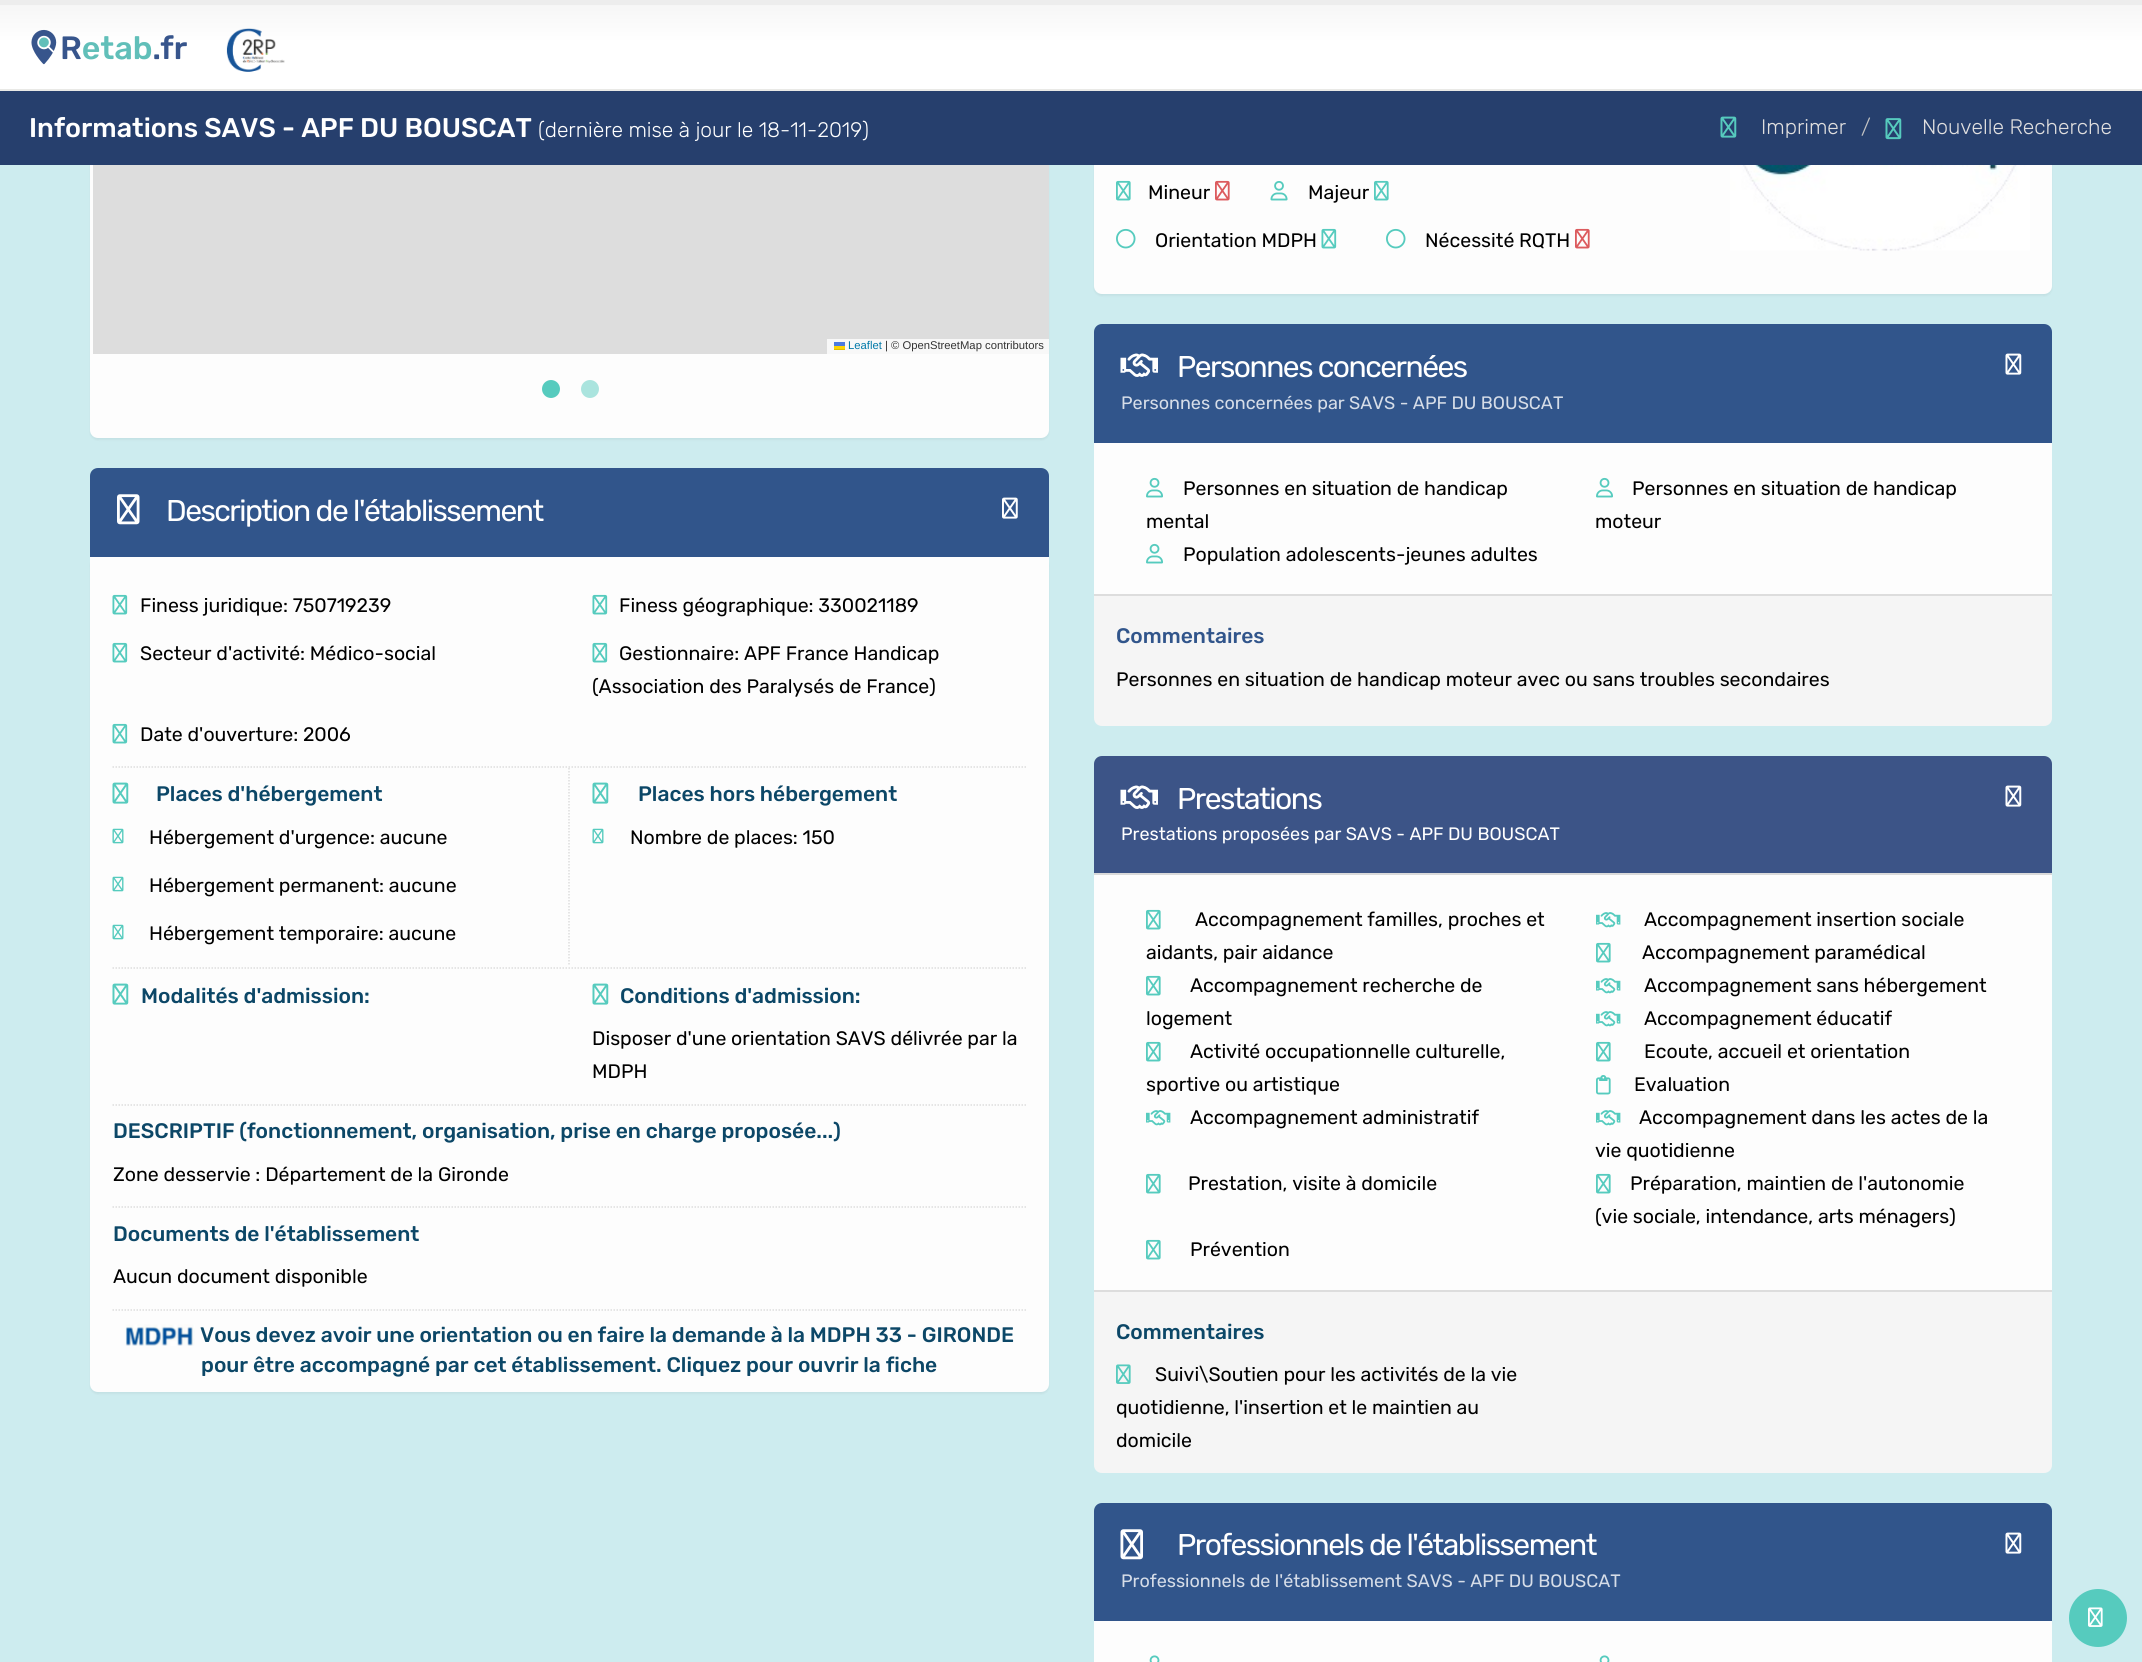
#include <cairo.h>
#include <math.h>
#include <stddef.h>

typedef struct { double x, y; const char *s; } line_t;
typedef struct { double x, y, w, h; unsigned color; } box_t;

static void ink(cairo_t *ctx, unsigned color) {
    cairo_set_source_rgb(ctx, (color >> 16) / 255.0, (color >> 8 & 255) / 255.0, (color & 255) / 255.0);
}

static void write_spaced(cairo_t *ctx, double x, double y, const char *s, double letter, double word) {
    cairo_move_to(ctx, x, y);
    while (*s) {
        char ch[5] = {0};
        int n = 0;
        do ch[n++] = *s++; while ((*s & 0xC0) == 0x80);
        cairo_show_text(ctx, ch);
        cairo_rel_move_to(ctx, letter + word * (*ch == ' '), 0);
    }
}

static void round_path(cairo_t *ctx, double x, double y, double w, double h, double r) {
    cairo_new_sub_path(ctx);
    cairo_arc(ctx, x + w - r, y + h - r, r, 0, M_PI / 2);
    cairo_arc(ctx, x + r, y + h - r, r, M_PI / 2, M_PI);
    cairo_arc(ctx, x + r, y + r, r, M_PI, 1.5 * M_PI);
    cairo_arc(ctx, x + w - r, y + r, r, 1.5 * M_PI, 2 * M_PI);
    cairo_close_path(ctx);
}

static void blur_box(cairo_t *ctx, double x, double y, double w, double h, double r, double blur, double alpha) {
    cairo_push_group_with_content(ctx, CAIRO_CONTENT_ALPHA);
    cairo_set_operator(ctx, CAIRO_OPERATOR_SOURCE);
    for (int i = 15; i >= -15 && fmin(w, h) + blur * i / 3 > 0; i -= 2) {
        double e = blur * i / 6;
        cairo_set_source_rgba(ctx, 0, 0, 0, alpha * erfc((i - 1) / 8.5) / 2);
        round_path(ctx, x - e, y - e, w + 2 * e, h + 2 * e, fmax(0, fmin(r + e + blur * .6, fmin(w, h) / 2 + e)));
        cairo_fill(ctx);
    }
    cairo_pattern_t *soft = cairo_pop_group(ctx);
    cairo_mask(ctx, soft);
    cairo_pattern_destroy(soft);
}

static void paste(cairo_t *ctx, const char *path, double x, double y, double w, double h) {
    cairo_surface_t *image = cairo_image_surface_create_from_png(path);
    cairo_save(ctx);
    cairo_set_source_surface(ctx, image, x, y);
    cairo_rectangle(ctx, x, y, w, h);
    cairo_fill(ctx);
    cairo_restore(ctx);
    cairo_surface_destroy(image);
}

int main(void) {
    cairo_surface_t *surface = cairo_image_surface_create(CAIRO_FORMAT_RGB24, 2142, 1662);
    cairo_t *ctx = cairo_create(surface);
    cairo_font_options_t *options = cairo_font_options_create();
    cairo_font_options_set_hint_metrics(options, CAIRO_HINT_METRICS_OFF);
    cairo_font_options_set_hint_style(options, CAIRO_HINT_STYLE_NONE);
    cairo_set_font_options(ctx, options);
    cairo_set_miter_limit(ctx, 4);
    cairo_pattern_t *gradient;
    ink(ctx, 0xCDECEF);
    cairo_paint(ctx);
    ink(ctx, 0x000000);
    blur_box(ctx, 90, -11, 959, 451, 8, 1, 0.05);
    ink(ctx, 0xFDFDFD);
    round_path(ctx, 90, -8, 959, 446, 8);
    cairo_fill(ctx);
    ink(ctx, 0x000000);
    blur_box(ctx, 1094, -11, 958, 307, 8, 1, 0.05);
    ink(ctx, 0xFDFDFD);
    round_path(ctx, 1094, -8, 958, 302, 8);
    cairo_fill(ctx);
    gradient = cairo_pattern_create_linear(1071, 4.5, 1071, 89);
    cairo_pattern_add_color_stop_rgba(gradient, 0, 0.965, 0.965, 0.965, 1);
    cairo_pattern_add_color_stop_rgba(gradient, 0.45, 1, 1, 1, 1);
    cairo_set_source(ctx, gradient);
    cairo_pattern_destroy(gradient);
    cairo_rectangle(ctx, 0, 5, 2142, 84);
    cairo_fill(ctx);
    ink(ctx, 0xEDEDED);
    cairo_rectangle(ctx, 0, 0, 2142, 5);
    cairo_fill(ctx);
    ink(ctx, 0xE9E9E6);
    cairo_rectangle(ctx, 0, 89, 2142, 2);
    cairo_fill(ctx);
    paste(ctx, "media/1.png", 31, 29, 156, 36);
    paste(ctx, "media/2.png", 226, 28, 59, 44);
    ink(ctx, 0x263F6D);
    cairo_rectangle(ctx, 0, 91, 2142, 74);
    cairo_fill(ctx);
    cairo_select_font_face(ctx, "Rubik Medium", CAIRO_FONT_SLANT_NORMAL, CAIRO_FONT_WEIGHT_NORMAL);
    cairo_set_font_size(ctx, 27);
    ink(ctx, 0xFFFFFF);
    cairo_move_to(ctx, 29, 137);
    cairo_show_text(ctx, "Informations SAVS - APF DU BOUSCAT");
    cairo_select_font_face(ctx, "Rubik Light", CAIRO_FONT_SLANT_NORMAL, CAIRO_FONT_WEIGHT_NORMAL);
    cairo_set_font_size(ctx, 21);
    cairo_move_to(ctx, 538, 137);
    cairo_show_text(ctx, "(dernière mise à jour le 18-11-2019)");
    paste(ctx, "media/3.png", 1720, 116, 17, 22);
    ink(ctx, 0xE0DFDF);
    cairo_move_to(ctx, 1761, 134);
    cairo_show_text(ctx, "Imprimer");
    ink(ctx, 0xC3C3C3);
    cairo_move_to(ctx, 1861, 134);
    cairo_show_text(ctx, "/");
    paste(ctx, "media/4.png", 1885, 118, 17, 22);
    ink(ctx, 0xE0DFDF);
    cairo_move_to(ctx, 1922, 134);
    cairo_show_text(ctx, "Nouvelle Recherche");
    ink(ctx, 0xDDDDDD);
    cairo_rectangle(ctx, 93, 165, 956, 189);
    cairo_fill(ctx);
    ink(ctx, 0xF8F8F8);
    cairo_rectangle(ctx, 827, 339, 222, 15);
    cairo_fill(ctx);
    cairo_select_font_face(ctx, "Liberation Sans", CAIRO_FONT_SLANT_NORMAL, CAIRO_FONT_WEIGHT_NORMAL);
    cairo_set_font_size(ctx, 11.25);
    ink(ctx, 0x0078A8);
    cairo_move_to(ctx, 848, 349);
    cairo_show_text(ctx, "Leaflet");
    {
        static const box_t items[] = {
            {834, 342, 11, 4, 0x4C7BE1},
            {834, 346, 11, 3, 0xFFD500},
            {834, 349, 11, 1, 0xE0BC00},
        };
        for (size_t i = 0; i < sizeof items / sizeof *items; i++) {
            ink(ctx, items[i].color);
            cairo_rectangle(ctx, items[i].x, items[i].y, items[i].w, items[i].h);
            cairo_fill(ctx);
        }
    }
    ink(ctx, 0x333333);
    cairo_move_to(ctx, 885, 349);
    cairo_show_text(ctx, "| © OpenStreetMap contributors");
    ink(ctx, 0x56CBBE);
    cairo_new_path(ctx);
    cairo_arc(ctx, 551, 389, 9, 0, 2 * M_PI);
    cairo_fill(ctx);
    ink(ctx, 0xAAE4DE);
    cairo_arc(ctx, 590, 389, 9, 0, 2 * M_PI);
    cairo_fill(ctx);
    ink(ctx, 0x000000);
    blur_box(ctx, 90, 558, 959, 836, 8, 1, 0.05);
    ink(ctx, 0x31558B);
    cairo_new_path(ctx);
    cairo_move_to(ctx, 98, 468);
    cairo_line_to(ctx, 1041, 468);
    cairo_curve_to(ctx, 1045.5, 468, 1049, 471.5, 1049, 476);
    cairo_line_to(ctx, 1049, 557);
    cairo_line_to(ctx, 90, 557);
    cairo_line_to(ctx, 90, 476);
    cairo_curve_to(ctx, 90, 471.5, 93.5, 468, 98, 468);
    cairo_close_path(ctx);
    cairo_fill(ctx);
    paste(ctx, "media/5.png", 117, 494, 23, 31);
    cairo_select_font_face(ctx, "Rubik", CAIRO_FONT_SLANT_NORMAL, CAIRO_FONT_WEIGHT_NORMAL);
    cairo_set_font_size(ctx, 30);
    ink(ctx, 0xFFFFFF);
    write_spaced(ctx, 166, 521, "Description de l'établissement", -1.5, 0);
    paste(ctx, "media/6.png", 1002, 497, 16, 22);
    ink(ctx, 0xFDFDFD);
    cairo_new_path(ctx);
    cairo_move_to(ctx, 90, 557);
    cairo_line_to(ctx, 1049, 557);
    cairo_line_to(ctx, 1049, 1384);
    cairo_curve_to(ctx, 1049, 1388.5, 1045.5, 1392, 1041, 1392);
    cairo_line_to(ctx, 98, 1392);
    cairo_curve_to(ctx, 93.5, 1392, 90, 1388.5, 90, 1384);
    cairo_close_path(ctx);
    cairo_fill(ctx);
    paste(ctx, "media/7.png", 112, 594, 16, 21);
    cairo_set_font_size(ctx, 19.5);
    ink(ctx, 0x000000);
    cairo_move_to(ctx, 140, 612);
    cairo_show_text(ctx, "Finess juridique: 750719239");
    paste(ctx, "media/7.png", 592, 594, 16, 21);
    cairo_move_to(ctx, 619, 612);
    cairo_show_text(ctx, "Finess géographique: 330021189");
    paste(ctx, "media/7.png", 112, 642, 16, 21);
    cairo_move_to(ctx, 140, 660);
    cairo_show_text(ctx, "Secteur d'activité: Médico-social");
    paste(ctx, "media/7.png", 592, 642, 16, 21);
    cairo_move_to(ctx, 619, 660);
    cairo_show_text(ctx, "Gestionnaire: APF France Handicap");
    cairo_move_to(ctx, 592, 693);
    cairo_show_text(ctx, "(Association des Paralysés de France)");
    paste(ctx, "media/7.png", 112, 723, 16, 21);
    cairo_move_to(ctx, 140, 741);
    cairo_show_text(ctx, "Date d'ouverture: 2006");
    cairo_new_path(ctx);
    cairo_move_to(ctx, 112.5, 767);
    cairo_line_to(ctx, 1026, 767);
    ink(ctx, 0xDDDDDD);
    cairo_set_line_width(ctx, 1.5);
    cairo_set_dash(ctx, (double[]){1.5, 1.5}, 2, 0);
    cairo_stroke(ctx);
    cairo_new_path(ctx);
    cairo_move_to(ctx, 569, 768);
    cairo_line_to(ctx, 569, 964.5);
    cairo_stroke(ctx);
    paste(ctx, "media/8.png", 112, 782, 17, 22);
    cairo_select_font_face(ctx, "Rubik Medium", CAIRO_FONT_SLANT_NORMAL, CAIRO_FONT_WEIGHT_NORMAL);
    cairo_set_font_size(ctx, 21);
    ink(ctx, 0x0C4767);
    cairo_move_to(ctx, 156, 801);
    cairo_show_text(ctx, "Places d'hébergement");
    paste(ctx, "media/9.png", 112, 828, 12, 16);
    cairo_select_font_face(ctx, "Rubik", CAIRO_FONT_SLANT_NORMAL, CAIRO_FONT_WEIGHT_NORMAL);
    cairo_set_font_size(ctx, 19.5);
    ink(ctx, 0x000000);
    cairo_move_to(ctx, 149, 844);
    cairo_show_text(ctx, "Hébergement d'urgence: aucune");
    paste(ctx, "media/9.png", 112, 876, 12, 16);
    cairo_move_to(ctx, 149, 892);
    cairo_show_text(ctx, "Hébergement permanent: aucune");
    paste(ctx, "media/9.png", 112, 924, 12, 16);
    cairo_move_to(ctx, 149, 940);
    cairo_show_text(ctx, "Hébergement temporaire: aucune");
    paste(ctx, "media/8.png", 592, 782, 17, 22);
    cairo_select_font_face(ctx, "Rubik Medium", CAIRO_FONT_SLANT_NORMAL, CAIRO_FONT_WEIGHT_NORMAL);
    cairo_set_font_size(ctx, 21);
    ink(ctx, 0x0C4767);
    cairo_move_to(ctx, 638, 801);
    cairo_show_text(ctx, "Places hors hébergement");
    paste(ctx, "media/9.png", 592, 828, 12, 16);
    cairo_select_font_face(ctx, "Rubik", CAIRO_FONT_SLANT_NORMAL, CAIRO_FONT_WEIGHT_NORMAL);
    cairo_set_font_size(ctx, 19.5);
    ink(ctx, 0x000000);
    cairo_move_to(ctx, 630, 844);
    cairo_show_text(ctx, "Nombre de places: 150");
    cairo_new_path(ctx);
    cairo_move_to(ctx, 112.5, 968);
    cairo_line_to(ctx, 1026, 968);
    ink(ctx, 0xDDDDDD);
    cairo_stroke(ctx);
    paste(ctx, "media/8.png", 112, 983, 17, 22);
    cairo_select_font_face(ctx, "Rubik Medium", CAIRO_FONT_SLANT_NORMAL, CAIRO_FONT_WEIGHT_NORMAL);
    cairo_set_font_size(ctx, 21);
    ink(ctx, 0x0C4767);
    cairo_move_to(ctx, 141, 1003);
    cairo_show_text(ctx, "Modalités d'admission:");
    paste(ctx, "media/8.png", 592, 983, 17, 22);
    cairo_move_to(ctx, 620, 1003);
    cairo_show_text(ctx, "Conditions d'admission:");
    cairo_select_font_face(ctx, "Rubik", CAIRO_FONT_SLANT_NORMAL, CAIRO_FONT_WEIGHT_NORMAL);
    cairo_set_font_size(ctx, 19.5);
    ink(ctx, 0x000000);
    cairo_move_to(ctx, 592, 1045);
    cairo_show_text(ctx, "Disposer d'une orientation SAVS délivrée par la");
    cairo_move_to(ctx, 592, 1078);
    cairo_show_text(ctx, "MDPH");
    cairo_new_path(ctx);
    cairo_move_to(ctx, 112.5, 1105);
    cairo_line_to(ctx, 1026, 1105);
    ink(ctx, 0xDDDDDD);
    cairo_stroke(ctx);
    cairo_select_font_face(ctx, "Rubik Medium", CAIRO_FONT_SLANT_NORMAL, CAIRO_FONT_WEIGHT_NORMAL);
    cairo_set_font_size(ctx, 21);
    ink(ctx, 0x0C4767);
    cairo_move_to(ctx, 113, 1138);
    cairo_show_text(ctx, "DESCRIPTIF (fonctionnement, organisation, prise en charge proposée...)");
    cairo_select_font_face(ctx, "Rubik", CAIRO_FONT_SLANT_NORMAL, CAIRO_FONT_WEIGHT_NORMAL);
    cairo_set_font_size(ctx, 19.5);
    ink(ctx, 0x000000);
    cairo_move_to(ctx, 113, 1181);
    cairo_show_text(ctx, "Zone desservie : Département de la Gironde");
    cairo_new_path(ctx);
    cairo_move_to(ctx, 112.5, 1207);
    cairo_line_to(ctx, 1026, 1207);
    ink(ctx, 0xDDDDDD);
    cairo_stroke(ctx);
    cairo_select_font_face(ctx, "Rubik Medium", CAIRO_FONT_SLANT_NORMAL, CAIRO_FONT_WEIGHT_NORMAL);
    cairo_set_font_size(ctx, 21);
    ink(ctx, 0x0C4767);
    cairo_move_to(ctx, 113, 1241);
    cairo_show_text(ctx, "Documents de l'établissement");
    cairo_select_font_face(ctx, "Rubik", CAIRO_FONT_SLANT_NORMAL, CAIRO_FONT_WEIGHT_NORMAL);
    cairo_set_font_size(ctx, 19.5);
    ink(ctx, 0x000000);
    cairo_move_to(ctx, 113, 1283);
    cairo_show_text(ctx, "Aucun document disponible");
    cairo_new_path(ctx);
    cairo_move_to(ctx, 112.5, 1310);
    cairo_line_to(ctx, 1026, 1310);
    ink(ctx, 0xDDDDDD);
    cairo_stroke(ctx);
    paste(ctx, "media/10.png", 125, 1324, 70, 22);
    cairo_select_font_face(ctx, "Rubik Medium", CAIRO_FONT_SLANT_NORMAL, CAIRO_FONT_WEIGHT_NORMAL);
    cairo_set_font_size(ctx, 21);
    ink(ctx, 0x0C4767);
    cairo_move_to(ctx, 200, 1342);
    cairo_show_text(ctx, "Vous devez avoir une orientation ou en faire la demande à la MDPH 33 - GIRONDE");
    cairo_move_to(ctx, 201, 1372);
    cairo_show_text(ctx, "pour être accompagné par cet établissement. Cliquez pour ouvrir la fiche");
    paste(ctx, "media/11.png", 1116, 180, 15, 21);
    cairo_select_font_face(ctx, "Rubik", CAIRO_FONT_SLANT_NORMAL, CAIRO_FONT_WEIGHT_NORMAL);
    cairo_set_font_size(ctx, 19.5);
    ink(ctx, 0x000000);
    cairo_move_to(ctx, 1148, 199);
    cairo_show_text(ctx, "Mineur");
    paste(ctx, "media/12.png", 1215, 180, 15, 21);
    paste(ctx, "media/13.png", 1270, 181, 18, 20);
    cairo_move_to(ctx, 1308, 199);
    cairo_show_text(ctx, "Majeur");
    paste(ctx, "media/11.png", 1374, 180, 15, 21);
    paste(ctx, "media/14.png", 1730, 165, 300, 86);
    paste(ctx, "media/15.png", 1116, 228, 20, 21);
    cairo_move_to(ctx, 1155, 247);
    cairo_show_text(ctx, "Orientation MDPH");
    paste(ctx, "media/7.png", 1321, 228, 16, 21);
    paste(ctx, "media/15.png", 1386, 228, 20, 21);
    cairo_move_to(ctx, 1425, 247);
    cairo_show_text(ctx, "Nécessité RQTH");
    paste(ctx, "media/12.png", 1575, 228, 15, 21);
    ink(ctx, 0x31558B);
    cairo_new_path(ctx);
    cairo_move_to(ctx, 1102, 324);
    cairo_line_to(ctx, 2044, 324);
    cairo_curve_to(ctx, 2048.5, 324, 2052, 327.5, 2052, 332);
    cairo_line_to(ctx, 2052, 443);
    cairo_line_to(ctx, 1094, 443);
    cairo_line_to(ctx, 1094, 332);
    cairo_curve_to(ctx, 1094, 327.5, 1097.5, 324, 1102, 324);
    cairo_close_path(ctx);
    cairo_fill(ctx);
    paste(ctx, "media/16.png", 1120, 353, 38, 24);
    cairo_set_font_size(ctx, 30);
    ink(ctx, 0xFFFFFF);
    write_spaced(ctx, 1177, 377, "Personnes concernées", -1.5, 0);
    paste(ctx, "media/17.png", 2005, 353, 17, 22);
    cairo_set_font_size(ctx, 18);
    ink(ctx, 0xD6DDE8);
    cairo_move_to(ctx, 1121, 409);
    cairo_show_text(ctx, "Personnes concernées par SAVS - APF DU BOUSCAT");
    ink(ctx, 0xFDFDFD);
    cairo_rectangle(ctx, 1094, 443, 958, 151);
    cairo_fill(ctx);
    paste(ctx, "media/18.png", 1146, 477, 17, 21);
    cairo_set_font_size(ctx, 19.5);
    ink(ctx, 0x000000);
    cairo_move_to(ctx, 1183, 495);
    cairo_show_text(ctx, "Personnes en situation de handicap");
    cairo_move_to(ctx, 1146, 528);
    cairo_show_text(ctx, "mental");
    paste(ctx, "media/18.png", 1596, 477, 17, 21);
    cairo_move_to(ctx, 1632, 495);
    cairo_show_text(ctx, "Personnes en situation de handicap");
    cairo_move_to(ctx, 1595, 528);
    cairo_show_text(ctx, "moteur");
    paste(ctx, "media/18.png", 1146, 543, 17, 21);
    cairo_move_to(ctx, 1183, 561);
    cairo_show_text(ctx, "Population adolescents-jeunes adultes");
    ink(ctx, 0xF5F5F5);
    cairo_new_path(ctx);
    cairo_move_to(ctx, 1094, 594);
    cairo_line_to(ctx, 2052, 594);
    cairo_line_to(ctx, 2052, 718);
    cairo_curve_to(ctx, 2052, 722.5, 2048.5, 726, 2044, 726);
    cairo_line_to(ctx, 1102, 726);
    cairo_curve_to(ctx, 1097.5, 726, 1094, 722.5, 1094, 718);
    cairo_close_path(ctx);
    cairo_fill(ctx);
    ink(ctx, 0xDDDDDD);
    cairo_rectangle(ctx, 1094, 594, 958, 2);
    cairo_fill(ctx);
    cairo_select_font_face(ctx, "Rubik Medium", CAIRO_FONT_SLANT_NORMAL, CAIRO_FONT_WEIGHT_NORMAL);
    cairo_set_font_size(ctx, 21);
    ink(ctx, 0x31558B);
    cairo_move_to(ctx, 1116, 643);
    cairo_show_text(ctx, "Commentaires");
    cairo_select_font_face(ctx, "Rubik", CAIRO_FONT_SLANT_NORMAL, CAIRO_FONT_WEIGHT_NORMAL);
    cairo_set_font_size(ctx, 19.5);
    ink(ctx, 0x000000);
    cairo_move_to(ctx, 1116, 686);
    cairo_show_text(ctx, "Personnes en situation de handicap moteur avec ou sans troubles secondaires");
    ink(ctx, 0x3C5487);
    cairo_new_path(ctx);
    cairo_move_to(ctx, 1102, 756);
    cairo_line_to(ctx, 2044, 756);
    cairo_curve_to(ctx, 2048.5, 756, 2052, 759.5, 2052, 764);
    cairo_line_to(ctx, 2052, 875);
    cairo_line_to(ctx, 1094, 875);
    cairo_line_to(ctx, 1094, 764);
    cairo_curve_to(ctx, 1094, 759.5, 1097.5, 756, 1102, 756);
    cairo_close_path(ctx);
    cairo_fill(ctx);
    ink(ctx, 0xDADADA);
    cairo_rectangle(ctx, 1094, 873, 958, 2);
    cairo_fill(ctx);
    paste(ctx, "media/19.png", 1120, 785, 38, 24);
    cairo_set_font_size(ctx, 30);
    ink(ctx, 0xFFFFFF);
    write_spaced(ctx, 1177, 809, "Prestations", -1.5, 0);
    paste(ctx, "media/20.png", 2005, 785, 17, 22);
    cairo_set_font_size(ctx, 18);
    cairo_move_to(ctx, 1121, 840);
    cairo_show_text(ctx, "Prestations proposées par SAVS - APF DU BOUSCAT");
    ink(ctx, 0xFDFDFD);
    cairo_rectangle(ctx, 1094, 875, 958, 415);
    cairo_fill(ctx);
    paste(ctx, "media/11.png", 1146, 909, 15, 21);
    cairo_set_font_size(ctx, 19.5);
    ink(ctx, 0x000000);
    cairo_move_to(ctx, 1195, 926);
    cairo_show_text(ctx, "Accompagnement familles, proches et");
    cairo_move_to(ctx, 1146, 959);
    cairo_show_text(ctx, "aidants, pair aidance");
    paste(ctx, "media/21.png", 1596, 912, 25, 16);
    cairo_move_to(ctx, 1644, 926);
    cairo_show_text(ctx, "Accompagnement insertion sociale");
    paste(ctx, "media/11.png", 1596, 942, 15, 21);
    cairo_move_to(ctx, 1642, 959);
    cairo_show_text(ctx, "Accompagnement paramédical");
    paste(ctx, "media/11.png", 1146, 975, 15, 21);
    cairo_move_to(ctx, 1190, 992);
    cairo_show_text(ctx, "Accompagnement recherche de");
    cairo_move_to(ctx, 1146, 1025);
    cairo_show_text(ctx, "logement");
    paste(ctx, "media/21.png", 1596, 978, 25, 16);
    cairo_move_to(ctx, 1644, 992);
    cairo_show_text(ctx, "Accompagnement sans hébergement");
    paste(ctx, "media/21.png", 1596, 1011, 25, 16);
    cairo_move_to(ctx, 1644, 1025);
    cairo_show_text(ctx, "Accompagnement éducatif");
    paste(ctx, "media/11.png", 1146, 1041, 15, 21);
    cairo_move_to(ctx, 1190, 1058);
    cairo_show_text(ctx, "Activité occupationnelle culturelle,");
    cairo_move_to(ctx, 1146, 1091);
    cairo_show_text(ctx, "sportive ou artistique");
    paste(ctx, "media/11.png", 1596, 1041, 15, 21);
    cairo_move_to(ctx, 1644, 1058);
    cairo_show_text(ctx, "Ecoute, accueil et orientation");
    paste(ctx, "media/22.png", 1596, 1075, 15, 20);
    cairo_move_to(ctx, 1634, 1091);
    cairo_show_text(ctx, "Evaluation");
    paste(ctx, "media/21.png", 1146, 1110, 25, 16);
    cairo_move_to(ctx, 1190, 1124);
    cairo_show_text(ctx, "Accompagnement administratif");
    paste(ctx, "media/21.png", 1596, 1110, 25, 16);
    cairo_move_to(ctx, 1639, 1124);
    cairo_show_text(ctx, "Accompagnement dans les actes de la");
    cairo_move_to(ctx, 1595, 1157);
    cairo_show_text(ctx, "vie quotidienne");
    paste(ctx, "media/11.png", 1146, 1173, 15, 21);
    cairo_move_to(ctx, 1188, 1190);
    cairo_show_text(ctx, "Prestation, visite à domicile");
    paste(ctx, "media/11.png", 1596, 1173, 15, 21);
    cairo_move_to(ctx, 1630, 1190);
    cairo_show_text(ctx, "Préparation, maintien de l'autonomie");
    cairo_move_to(ctx, 1595, 1223);
    cairo_show_text(ctx, "(vie sociale, intendance, arts ménagers)");
    paste(ctx, "media/11.png", 1146, 1239, 15, 21);
    cairo_move_to(ctx, 1190, 1256);
    cairo_show_text(ctx, "Prévention");
    ink(ctx, 0xF5F5F5);
    cairo_new_path(ctx);
    cairo_move_to(ctx, 1094, 1290);
    cairo_line_to(ctx, 2052, 1290);
    cairo_line_to(ctx, 2052, 1465);
    cairo_curve_to(ctx, 2052, 1469.5, 2048.5, 1473, 2044, 1473);
    cairo_line_to(ctx, 1102, 1473);
    cairo_curve_to(ctx, 1097.5, 1473, 1094, 1469.5, 1094, 1465);
    cairo_close_path(ctx);
    cairo_fill(ctx);
    ink(ctx, 0xDDDDDD);
    cairo_rectangle(ctx, 1094, 1290, 958, 2);
    cairo_fill(ctx);
    cairo_select_font_face(ctx, "Rubik Medium", CAIRO_FONT_SLANT_NORMAL, CAIRO_FONT_WEIGHT_NORMAL);
    cairo_set_font_size(ctx, 21);
    ink(ctx, 0x0C4767);
    cairo_move_to(ctx, 1116, 1339);
    cairo_show_text(ctx, "Commentaires");
    paste(ctx, "media/23.png", 1116, 1364, 15, 20);
    cairo_select_font_face(ctx, "Rubik", CAIRO_FONT_SLANT_NORMAL, CAIRO_FONT_WEIGHT_NORMAL);
    cairo_set_font_size(ctx, 19.5);
    ink(ctx, 0x000000);
    {
        static const line_t items[] = {
            {1155, 1381, "Suivi\\Soutien pour les activités de la vie"},
            {1116, 1414, "quotidienne, l'insertion et le maintien au"},
            {1116, 1447, "domicile"},
        };
        for (size_t i = 0; i < sizeof items / sizeof *items; i++) {
            cairo_move_to(ctx, items[i].x, items[i].y);
            cairo_show_text(ctx, items[i].s);
        }
    }
    ink(ctx, 0x31558B);
    cairo_new_path(ctx);
    cairo_move_to(ctx, 1102, 1503);
    cairo_line_to(ctx, 2044, 1503);
    cairo_curve_to(ctx, 2048.5, 1503, 2052, 1506.5, 2052, 1511);
    cairo_line_to(ctx, 2052, 1620);
    cairo_line_to(ctx, 1094, 1620);
    cairo_line_to(ctx, 1094, 1511);
    cairo_curve_to(ctx, 1094, 1506.5, 1097.5, 1503, 1102, 1503);
    cairo_close_path(ctx);
    cairo_fill(ctx);
    cairo_rectangle(ctx, 1094, 1620, 958, 1);
    cairo_fill(ctx);
    paste(ctx, "media/24.png", 1120, 1529, 23, 31);
    cairo_set_font_size(ctx, 30);
    ink(ctx, 0xFFFFFF);
    write_spaced(ctx, 1177, 1555, "Professionnels de l'établissement", -1.5, 0);
    paste(ctx, "media/17.png", 2005, 1532, 17, 22);
    cairo_set_font_size(ctx, 18);
    ink(ctx, 0xD6DDE8);
    cairo_move_to(ctx, 1121, 1587);
    cairo_show_text(ctx, "Professionnels de l'établissement SAVS - APF DU BOUSCAT");
    ink(ctx, 0xFDFDFD);
    cairo_rectangle(ctx, 1094, 1621, 958, 41);
    cairo_fill(ctx);
    paste(ctx, "media/25.png", 1149, 1655, 11, 7);
    paste(ctx, "media/25.png", 1599, 1655, 11, 7);
    ink(ctx, 0x56CBBE);
    cairo_arc(ctx, 2098, 1618, 29, 0, 2 * M_PI);
    cairo_fill(ctx);
    paste(ctx, "media/26.png", 2088, 1607, 15, 20);
    cairo_surface_write_to_png(surface, "image.png");
    cairo_font_options_destroy(options);
    cairo_destroy(ctx);
    cairo_surface_destroy(surface);
    return 0;
}
